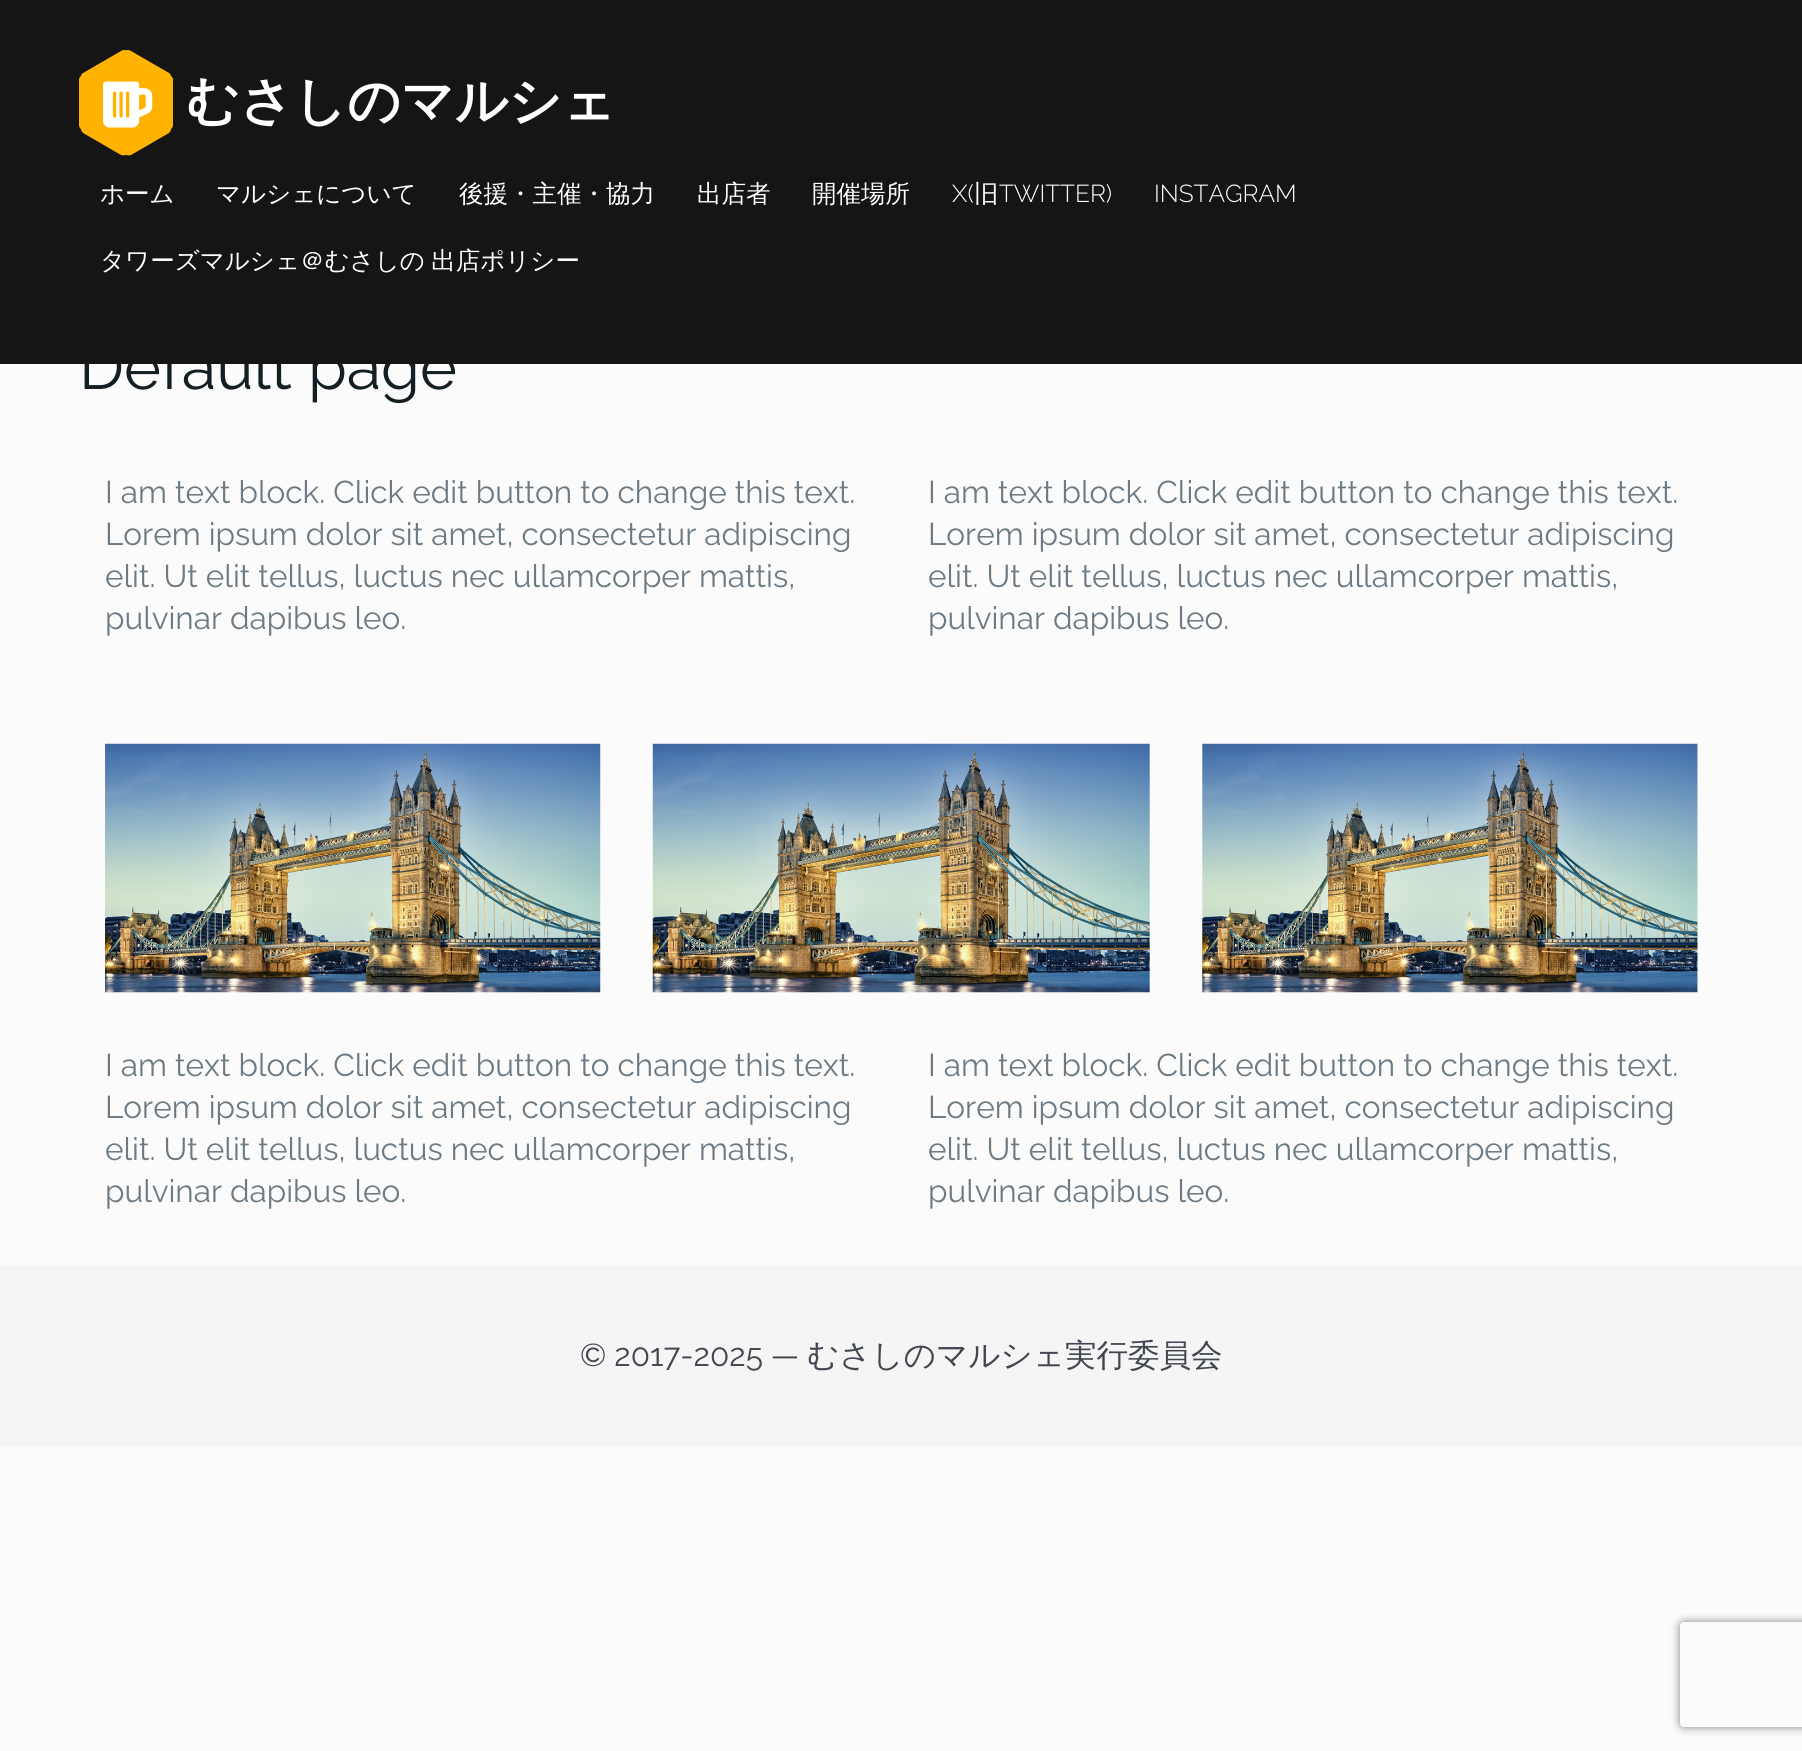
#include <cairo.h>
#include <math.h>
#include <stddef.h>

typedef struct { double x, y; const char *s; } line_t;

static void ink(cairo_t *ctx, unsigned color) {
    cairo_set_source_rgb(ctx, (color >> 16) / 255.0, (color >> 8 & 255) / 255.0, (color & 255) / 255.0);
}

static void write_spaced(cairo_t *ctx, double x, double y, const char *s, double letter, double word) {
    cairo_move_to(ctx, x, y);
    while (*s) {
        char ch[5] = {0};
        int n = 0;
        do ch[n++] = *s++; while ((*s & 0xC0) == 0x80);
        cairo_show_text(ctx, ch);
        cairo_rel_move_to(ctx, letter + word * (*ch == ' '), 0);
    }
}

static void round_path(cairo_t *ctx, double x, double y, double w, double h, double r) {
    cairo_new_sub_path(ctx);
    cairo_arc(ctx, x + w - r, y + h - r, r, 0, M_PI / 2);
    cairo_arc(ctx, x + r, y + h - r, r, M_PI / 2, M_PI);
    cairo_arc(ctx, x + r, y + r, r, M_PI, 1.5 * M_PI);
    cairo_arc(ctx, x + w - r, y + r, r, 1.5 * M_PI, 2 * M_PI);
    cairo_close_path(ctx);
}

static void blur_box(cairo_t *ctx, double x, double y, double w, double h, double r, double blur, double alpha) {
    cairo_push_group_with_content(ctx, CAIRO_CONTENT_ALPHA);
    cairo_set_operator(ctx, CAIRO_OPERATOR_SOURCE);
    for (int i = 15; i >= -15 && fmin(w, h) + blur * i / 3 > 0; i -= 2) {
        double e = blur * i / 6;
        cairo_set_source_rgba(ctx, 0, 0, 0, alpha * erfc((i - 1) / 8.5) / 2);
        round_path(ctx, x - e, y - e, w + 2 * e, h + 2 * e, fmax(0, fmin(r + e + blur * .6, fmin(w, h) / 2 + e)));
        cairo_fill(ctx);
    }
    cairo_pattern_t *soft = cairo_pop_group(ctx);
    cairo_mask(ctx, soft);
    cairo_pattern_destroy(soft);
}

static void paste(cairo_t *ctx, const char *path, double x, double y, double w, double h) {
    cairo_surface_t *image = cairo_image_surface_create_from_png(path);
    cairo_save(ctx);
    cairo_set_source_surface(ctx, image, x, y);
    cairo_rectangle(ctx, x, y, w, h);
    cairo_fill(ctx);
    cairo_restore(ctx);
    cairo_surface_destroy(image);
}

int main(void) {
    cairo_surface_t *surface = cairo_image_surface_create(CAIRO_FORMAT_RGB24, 1802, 1751);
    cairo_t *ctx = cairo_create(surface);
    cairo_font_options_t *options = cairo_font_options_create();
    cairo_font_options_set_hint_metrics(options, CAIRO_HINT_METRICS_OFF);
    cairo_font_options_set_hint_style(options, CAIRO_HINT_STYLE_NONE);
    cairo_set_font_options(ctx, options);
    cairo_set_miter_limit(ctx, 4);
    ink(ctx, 0xFBFBFB);
    cairo_paint(ctx);
    cairo_select_font_face(ctx, "Raleway", CAIRO_FONT_SLANT_NORMAL, CAIRO_FONT_WEIGHT_NORMAL);
    cairo_set_font_size(ctx, 63);
    ink(ctx, 0x141F23);
    cairo_move_to(ctx, 79, 389);
    cairo_show_text(ctx, "Default page");
    ink(ctx, 0x151515);
    cairo_rectangle(ctx, 0, 0, 1802, 364);
    cairo_fill(ctx);
    ink(ctx, 0xFFB200);
    round_path(ctx, 79, 75, 94, 55, 5);
    cairo_fill(ctx);
    cairo_new_path(ctx);
    cairo_move_to(ctx, 128, 53);
    cairo_line_to(ctx, 170, 126);
    cairo_curve_to(ctx, 172, 128, 171, 131, 169, 133);
    cairo_line_to(ctx, 131, 155);
    cairo_curve_to(ctx, 128, 156, 125, 155, 124, 153);
    cairo_line_to(ctx, 82, 80);
    cairo_curve_to(ctx, 80, 77, 81, 74, 83, 73);
    cairo_line_to(ctx, 121, 51);
    cairo_curve_to(ctx, 124, 49, 127, 50, 128, 53);
    cairo_close_path(ctx);
    cairo_fill(ctx);
    cairo_new_path(ctx);
    cairo_move_to(ctx, 82, 126);
    cairo_line_to(ctx, 124, 53);
    cairo_curve_to(ctx, 125, 50, 128, 49, 131, 51);
    cairo_line_to(ctx, 169, 73);
    cairo_curve_to(ctx, 171, 74, 172, 77, 170, 80);
    cairo_line_to(ctx, 128, 153);
    cairo_curve_to(ctx, 127, 155, 124, 156, 121, 155);
    cairo_line_to(ctx, 83, 133);
    cairo_curve_to(ctx, 81, 131, 80, 128, 82, 126);
    cairo_close_path(ctx);
    cairo_fill(ctx);
    paste(ctx, "media/1.png", 103, 81, 50, 47);
    cairo_select_font_face(ctx, "WenQuanYi Zen Hei", CAIRO_FONT_SLANT_NORMAL, CAIRO_FONT_WEIGHT_BOLD);
    cairo_set_font_size(ctx, 52.5);
    ink(ctx, 0xFFFFFF);
    cairo_move_to(ctx, 186, 119);
    cairo_show_text(ctx, "むさしのマルシェ");
    cairo_select_font_face(ctx, "WenQuanYi Zen Hei Medium", CAIRO_FONT_SLANT_NORMAL, CAIRO_FONT_WEIGHT_NORMAL);
    cairo_set_font_size(ctx, 24.5);
    {
        static const line_t items[] = {
            {100, 202, "ホーム"},
            {216, 202, "マルシェについて"},
            {459, 202, "後援・主催・協力"},
            {697, 202, "出店者"},
            {812, 202, "開催場所"},
        };
        for (size_t i = 0; i < sizeof items / sizeof *items; i++) {
            cairo_move_to(ctx, items[i].x, items[i].y);
            cairo_show_text(ctx, items[i].s);
        }
    }
    cairo_select_font_face(ctx, "Raleway Light", CAIRO_FONT_SLANT_NORMAL, CAIRO_FONT_WEIGHT_NORMAL);
    cairo_move_to(ctx, 952, 202);
    cairo_show_text(ctx, "X(");
    cairo_select_font_face(ctx, "WenQuanYi Zen Hei Medium", CAIRO_FONT_SLANT_NORMAL, CAIRO_FONT_WEIGHT_NORMAL);
    cairo_move_to(ctx, 974, 202);
    cairo_show_text(ctx, "旧");
    cairo_select_font_face(ctx, "Raleway Light", CAIRO_FONT_SLANT_NORMAL, CAIRO_FONT_WEIGHT_NORMAL);
    cairo_move_to(ctx, 999, 202);
    cairo_show_text(ctx, "TWITTER)");
    cairo_move_to(ctx, 1154, 202);
    cairo_show_text(ctx, "INSTAGRAM");
    cairo_select_font_face(ctx, "WenQuanYi Zen Hei Medium", CAIRO_FONT_SLANT_NORMAL, CAIRO_FONT_WEIGHT_NORMAL);
    write_spaced(ctx, 100, 269, "タワーズマルシェ＠むさしの 出店ポリシー", 0, -1);
    cairo_select_font_face(ctx, "Raleway", CAIRO_FONT_SLANT_NORMAL, CAIRO_FONT_WEIGHT_NORMAL);
    cairo_set_font_size(ctx, 31.5);
    ink(ctx, 0x6D7A83);
    {
        static const line_t items[] = {
            {105, 503, "I am text block. Click edit button to change this text."},
            {105, 545, "Lorem ipsum dolor sit amet, consectetur adipiscing"},
            {105, 587, "elit. Ut elit tellus, luctus nec ullamcorper mattis,"},
            {105, 629, "pulvinar dapibus leo."},
            {928, 503, "I am text block. Click edit button to change this text."},
            {928, 545, "Lorem ipsum dolor sit amet, consectetur adipiscing"},
            {928, 587, "elit. Ut elit tellus, luctus nec ullamcorper mattis,"},
            {928, 629, "pulvinar dapibus leo."},
        };
        for (size_t i = 0; i < sizeof items / sizeof *items; i++) {
            cairo_move_to(ctx, items[i].x, items[i].y);
            cairo_show_text(ctx, items[i].s);
        }
    }
    paste(ctx, "media/2.png", 105, 743, 496, 250);
    paste(ctx, "media/3.png", 652, 743, 498, 250);
    paste(ctx, "media/4.png", 1202, 743, 496, 250);
    {
        static const line_t items[] = {
            {105, 1076, "I am text block. Click edit button to change this text."},
            {105, 1118, "Lorem ipsum dolor sit amet, consectetur adipiscing"},
            {105, 1160, "elit. Ut elit tellus, luctus nec ullamcorper mattis,"},
            {105, 1202, "pulvinar dapibus leo."},
            {928, 1076, "I am text block. Click edit button to change this text."},
            {928, 1118, "Lorem ipsum dolor sit amet, consectetur adipiscing"},
            {928, 1160, "elit. Ut elit tellus, luctus nec ullamcorper mattis,"},
            {928, 1202, "pulvinar dapibus leo."},
        };
        for (size_t i = 0; i < sizeof items / sizeof *items; i++) {
            cairo_move_to(ctx, items[i].x, items[i].y);
            cairo_show_text(ctx, items[i].s);
        }
    }
    ink(ctx, 0xF5F5F5);
    cairo_rectangle(ctx, 0, 1265, 1802, 182);
    cairo_fill(ctx);
    ink(ctx, 0x414650);
    cairo_move_to(ctx, 580, 1366);
    cairo_show_text(ctx, "© 2017-2025 —");
    cairo_select_font_face(ctx, "WenQuanYi Zen Hei Medium", CAIRO_FONT_SLANT_NORMAL, CAIRO_FONT_WEIGHT_NORMAL);
    cairo_move_to(ctx, 807, 1366);
    cairo_show_text(ctx, "むさしのマルシェ実行委員会");
    cairo_save(ctx);
    cairo_set_fill_rule(ctx, CAIRO_FILL_RULE_EVEN_ODD);
    cairo_new_path(ctx);
    cairo_move_to(ctx, 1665, 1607);
    cairo_line_to(ctx, 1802, 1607);
    cairo_line_to(ctx, 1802, 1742);
    cairo_line_to(ctx, 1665, 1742);
    cairo_close_path(ctx);
    cairo_move_to(ctx, 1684, 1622);
    cairo_line_to(ctx, 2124, 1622);
    cairo_curve_to(ctx, 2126, 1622, 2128, 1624, 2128, 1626);
    cairo_line_to(ctx, 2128, 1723);
    cairo_curve_to(ctx, 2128, 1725, 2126, 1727, 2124, 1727);
    cairo_line_to(ctx, 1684, 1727);
    cairo_curve_to(ctx, 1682, 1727, 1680, 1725, 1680, 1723);
    cairo_line_to(ctx, 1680, 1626);
    cairo_curve_to(ctx, 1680, 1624, 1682, 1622, 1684, 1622);
    cairo_close_path(ctx);
    cairo_clip(ctx);
    ink(ctx, 0x808080);
    blur_box(ctx, 1680, 1622, 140, 105, 4, 4.5, 1);
    cairo_restore(ctx);
    cairo_surface_write_to_png(surface, "image.png");
    cairo_font_options_destroy(options);
    cairo_destroy(ctx);
    cairo_surface_destroy(surface);
    return 0;
}
